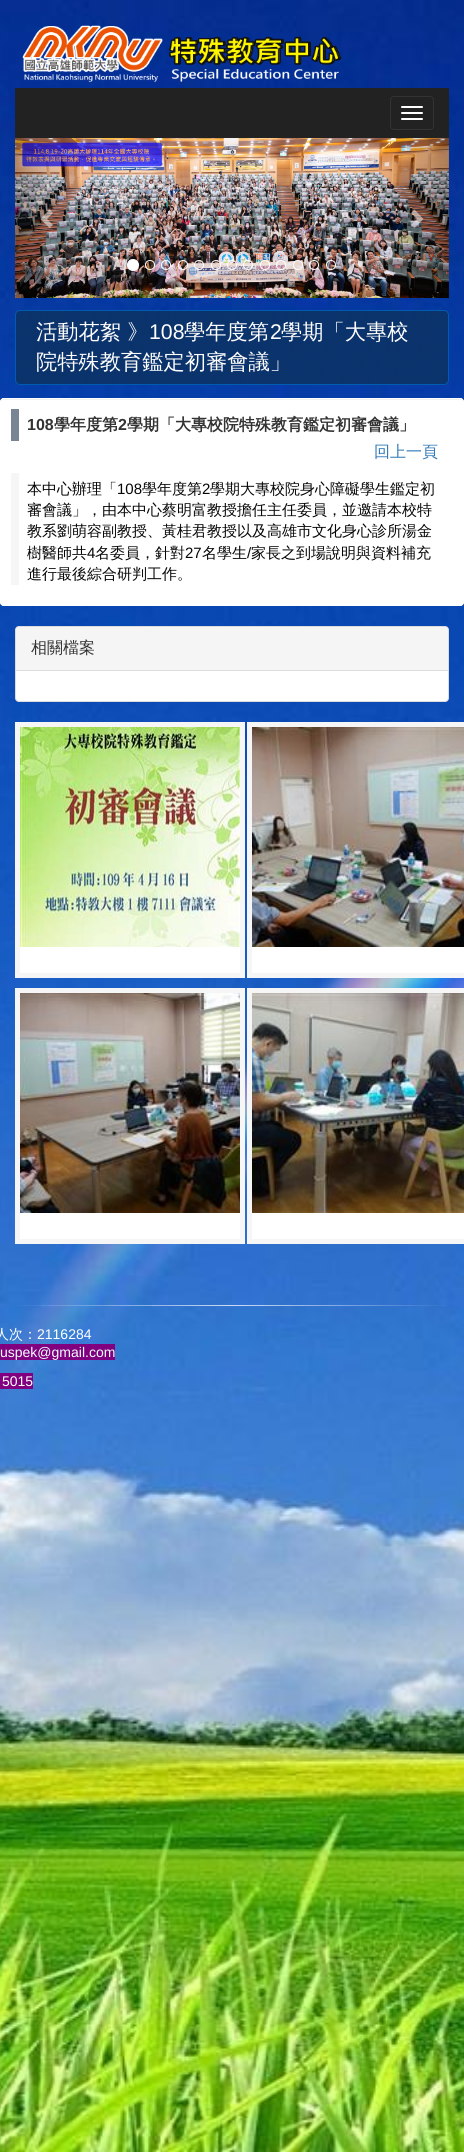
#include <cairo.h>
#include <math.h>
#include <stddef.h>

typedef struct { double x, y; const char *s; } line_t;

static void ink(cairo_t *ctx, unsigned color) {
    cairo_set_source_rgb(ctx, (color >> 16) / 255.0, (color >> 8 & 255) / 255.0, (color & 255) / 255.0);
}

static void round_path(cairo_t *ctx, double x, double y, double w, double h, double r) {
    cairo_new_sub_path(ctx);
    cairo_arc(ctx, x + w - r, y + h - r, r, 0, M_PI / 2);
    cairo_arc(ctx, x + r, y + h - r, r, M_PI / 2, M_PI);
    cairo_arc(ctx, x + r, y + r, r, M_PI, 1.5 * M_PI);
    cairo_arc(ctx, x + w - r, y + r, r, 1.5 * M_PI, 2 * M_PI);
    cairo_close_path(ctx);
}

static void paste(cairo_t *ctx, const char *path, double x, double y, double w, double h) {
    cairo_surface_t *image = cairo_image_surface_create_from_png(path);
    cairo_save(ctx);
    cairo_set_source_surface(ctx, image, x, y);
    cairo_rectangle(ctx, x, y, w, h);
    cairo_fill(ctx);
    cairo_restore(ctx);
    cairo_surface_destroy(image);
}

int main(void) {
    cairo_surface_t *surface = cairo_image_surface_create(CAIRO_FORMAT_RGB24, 464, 2152);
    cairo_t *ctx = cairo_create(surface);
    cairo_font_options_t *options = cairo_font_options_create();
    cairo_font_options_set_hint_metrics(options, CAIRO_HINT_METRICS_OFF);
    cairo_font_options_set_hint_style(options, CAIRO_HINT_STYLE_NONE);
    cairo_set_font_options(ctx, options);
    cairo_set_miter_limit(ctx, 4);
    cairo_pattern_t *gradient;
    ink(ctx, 0xFFFFFF);
    cairo_paint(ctx);
    paste(ctx, "media/1.png", 0, 0, 464, 2152);
    paste(ctx, "media/2.png", 22, 25, 320, 57);
    ink(ctx, 0x222222);
    cairo_rectangle(ctx, 15, 88, 434, 50);
    cairo_fill(ctx);
    round_path(ctx, 390.5, 96.5, 43, 33, 3.5);
    ink(ctx, 0x333333);
    cairo_set_line_width(ctx, 1);
    cairo_stroke(ctx);
    ink(ctx, 0xFFFFFF);
    round_path(ctx, 401, 106, 22, 2, 1);
    cairo_fill(ctx);
    round_path(ctx, 401, 112, 22, 2, 1);
    cairo_fill(ctx);
    round_path(ctx, 401, 118, 22, 2, 1);
    cairo_fill(ctx);
    paste(ctx, "media/3.png", 15, 138, 434, 160);
    cairo_set_source_rgba(ctx, 1, 1, 1, 0.5);
    cairo_new_path(ctx);
    cairo_move_to(ctx, 53, 213);
    cairo_line_to(ctx, 47, 219);
    cairo_line_to(ctx, 53, 225);
    cairo_line_to(ctx, 49.5, 228);
    cairo_line_to(ctx, 40.5, 219);
    cairo_line_to(ctx, 49.5, 209.5);
    cairo_close_path(ctx);
    cairo_fill(ctx);
    gradient = cairo_pattern_create_linear(384, 218, 449, 218);
    cairo_pattern_add_color_stop_rgba(gradient, 0, 0, 0, 0, 0);
    cairo_pattern_add_color_stop_rgba(gradient, 1, 0, 0, 0, 0.25);
    cairo_set_source(ctx, gradient);
    cairo_pattern_destroy(gradient);
    cairo_rectangle(ctx, 390, 138, 59, 160);
    cairo_fill(ctx);
    cairo_set_source_rgba(ctx, 1, 1, 1, 0.5);
    cairo_new_path(ctx);
    cairo_move_to(ctx, 423.5, 219);
    cairo_line_to(ctx, 414.5, 228);
    cairo_line_to(ctx, 411, 225);
    cairo_line_to(ctx, 417, 219);
    cairo_line_to(ctx, 411, 213);
    cairo_line_to(ctx, 414.5, 209.5);
    cairo_close_path(ctx);
    cairo_fill(ctx);
    ink(ctx, 0xFFFFFF);
    cairo_arc(ctx, 133, 265, 5.5, 0, 2 * M_PI);
    cairo_fill_preserve(ctx);
    cairo_stroke(ctx);
    cairo_arc(ctx, 150, 265, 4.5, 0, 2 * M_PI);
    cairo_stroke(ctx);
    cairo_arc(ctx, 166, 265, 4.5, 0, 2 * M_PI);
    cairo_stroke(ctx);
    cairo_arc(ctx, 183, 265, 4.5, 0, 2 * M_PI);
    cairo_stroke(ctx);
    cairo_arc(ctx, 199, 265, 4.5, 0, 2 * M_PI);
    cairo_stroke(ctx);
    cairo_arc(ctx, 216, 265, 4.5, 0, 2 * M_PI);
    cairo_stroke(ctx);
    cairo_arc(ctx, 232, 265, 4.5, 0, 2 * M_PI);
    cairo_stroke(ctx);
    cairo_arc(ctx, 248, 265, 4.5, 0, 2 * M_PI);
    cairo_stroke(ctx);
    cairo_arc(ctx, 265, 265, 4.5, 0, 2 * M_PI);
    cairo_stroke(ctx);
    cairo_arc(ctx, 281, 265, 4.5, 0, 2 * M_PI);
    cairo_stroke(ctx);
    cairo_arc(ctx, 298, 265, 4.5, 0, 2 * M_PI);
    cairo_stroke(ctx);
    cairo_arc(ctx, 314, 265, 4.5, 0, 2 * M_PI);
    cairo_stroke(ctx);
    cairo_arc(ctx, 331, 265, 4.5, 0, 2 * M_PI);
    cairo_stroke(ctx);
    ink(ctx, 0x0B346E);
    round_path(ctx, 15, 310, 434, 75, 5);
    cairo_fill(ctx);
    paste(ctx, "media/4.png", 16, 311, 433, 74);
    round_path(ctx, 15.5, 310.5, 433, 74, 4.5);
    ink(ctx, 0x005CAF);
    cairo_stroke(ctx);
    cairo_select_font_face(ctx, "WenQuanYi Zen Hei Medium", CAIRO_FONT_SLANT_NORMAL, CAIRO_FONT_WEIGHT_NORMAL);
    cairo_set_font_size(ctx, 21.25);
    ink(ctx, 0xFFFFFF);
    cairo_move_to(ctx, 36, 339);
    cairo_show_text(ctx, "活動花絮 》");
    cairo_select_font_face(ctx, "Liberation Sans", CAIRO_FONT_SLANT_NORMAL, CAIRO_FONT_WEIGHT_NORMAL);
    cairo_move_to(ctx, 149, 339);
    cairo_show_text(ctx, "108");
    cairo_select_font_face(ctx, "WenQuanYi Zen Hei Medium", CAIRO_FONT_SLANT_NORMAL, CAIRO_FONT_WEIGHT_NORMAL);
    cairo_move_to(ctx, 184, 339);
    cairo_show_text(ctx, "學年度第");
    cairo_select_font_face(ctx, "Liberation Sans", CAIRO_FONT_SLANT_NORMAL, CAIRO_FONT_WEIGHT_NORMAL);
    cairo_move_to(ctx, 270, 339);
    cairo_show_text(ctx, "2");
    cairo_select_font_face(ctx, "WenQuanYi Zen Hei Medium", CAIRO_FONT_SLANT_NORMAL, CAIRO_FONT_WEIGHT_NORMAL);
    cairo_move_to(ctx, 281, 339);
    cairo_show_text(ctx, "學期「大專校");
    cairo_move_to(ctx, 36, 369);
    cairo_show_text(ctx, "院特殊教育鑑定初審會議」");
    round_path(ctx, 0, 398, 464, 208, 4);
    cairo_fill(ctx);
    ink(ctx, 0xF2F2F2);
    cairo_new_path(ctx);
    cairo_move_to(ctx, 4, 400);
    cairo_line_to(ctx, 460, 400);
    cairo_curve_to(ctx, 462, 400, 463, 401, 463, 403);
    cairo_curve_to(ctx, 463, 401, 462, 399, 460, 399);
    cairo_line_to(ctx, 3, 399);
    cairo_line_to(ctx, 1, 401);
    cairo_line_to(ctx, 1, 403);
    cairo_curve_to(ctx, 1, 401, 2, 400, 4, 400);
    cairo_close_path(ctx);
    cairo_fill(ctx);
    round_path(ctx, 0.5, 398.5, 463, 207, 3.5);
    ink(ctx, 0xFFFFFF);
    cairo_stroke(ctx);
    ink(ctx, 0x798592);
    cairo_rectangle(ctx, 11, 409, 8, 32);
    cairo_fill(ctx);
    cairo_select_font_face(ctx, "Liberation Sans", CAIRO_FONT_SLANT_NORMAL, CAIRO_FONT_WEIGHT_BOLD);
    cairo_set_font_size(ctx, 16);
    ink(ctx, 0x333333);
    cairo_move_to(ctx, 27, 430);
    cairo_show_text(ctx, "108");
    cairo_select_font_face(ctx, "WenQuanYi Zen Hei", CAIRO_FONT_SLANT_NORMAL, CAIRO_FONT_WEIGHT_BOLD);
    cairo_move_to(ctx, 54, 430);
    cairo_show_text(ctx, "學年度第");
    cairo_select_font_face(ctx, "Liberation Sans", CAIRO_FONT_SLANT_NORMAL, CAIRO_FONT_WEIGHT_BOLD);
    cairo_move_to(ctx, 118, 430);
    cairo_show_text(ctx, "2");
    cairo_select_font_face(ctx, "WenQuanYi Zen Hei", CAIRO_FONT_SLANT_NORMAL, CAIRO_FONT_WEIGHT_BOLD);
    cairo_move_to(ctx, 127, 430);
    cairo_show_text(ctx, "學期「大專校院特殊教育鑑定初審會議」");
    cairo_select_font_face(ctx, "WenQuanYi Zen Hei Medium", CAIRO_FONT_SLANT_NORMAL, CAIRO_FONT_WEIGHT_NORMAL);
    ink(ctx, 0x337AB7);
    cairo_move_to(ctx, 374, 457);
    cairo_show_text(ctx, "回上一頁");
    ink(ctx, 0xF6F6F6);
    cairo_rectangle(ctx, 11, 473, 8, 112);
    cairo_fill(ctx);
    cairo_set_font_size(ctx, 15);
    ink(ctx, 0x050505);
    cairo_move_to(ctx, 27, 494);
    cairo_show_text(ctx, "本中心辦理「");
    cairo_select_font_face(ctx, "Liberation Sans", CAIRO_FONT_SLANT_NORMAL, CAIRO_FONT_WEIGHT_NORMAL);
    cairo_move_to(ctx, 117, 494);
    cairo_show_text(ctx, "108");
    cairo_select_font_face(ctx, "WenQuanYi Zen Hei Medium", CAIRO_FONT_SLANT_NORMAL, CAIRO_FONT_WEIGHT_NORMAL);
    cairo_move_to(ctx, 142, 494);
    cairo_show_text(ctx, "學年度第");
    cairo_select_font_face(ctx, "Liberation Sans", CAIRO_FONT_SLANT_NORMAL, CAIRO_FONT_WEIGHT_NORMAL);
    cairo_move_to(ctx, 202, 494);
    cairo_show_text(ctx, "2");
    cairo_select_font_face(ctx, "WenQuanYi Zen Hei Medium", CAIRO_FONT_SLANT_NORMAL, CAIRO_FONT_WEIGHT_NORMAL);
    {
        static const line_t items[] = {
            {210, 494, "學期大專校院身心障礙學生鑑定初"},
            {27, 515, "審會議」，由本中心蔡明富教授擔任主任委員，並邀請本校特"},
            {27, 536, "教系劉萌容副教授、黃桂君教授以及高雄市文化身心診所湯金"},
            {27, 558, "樹醫師共"},
        };
        for (size_t i = 0; i < sizeof items / sizeof *items; i++) {
            cairo_move_to(ctx, items[i].x, items[i].y);
            cairo_show_text(ctx, items[i].s);
        }
    }
    cairo_select_font_face(ctx, "Liberation Sans", CAIRO_FONT_SLANT_NORMAL, CAIRO_FONT_WEIGHT_NORMAL);
    cairo_move_to(ctx, 87, 558);
    cairo_show_text(ctx, "4");
    cairo_select_font_face(ctx, "WenQuanYi Zen Hei Medium", CAIRO_FONT_SLANT_NORMAL, CAIRO_FONT_WEIGHT_NORMAL);
    cairo_move_to(ctx, 95, 558);
    cairo_show_text(ctx, "名委員，針對");
    cairo_select_font_face(ctx, "Liberation Sans", CAIRO_FONT_SLANT_NORMAL, CAIRO_FONT_WEIGHT_NORMAL);
    cairo_move_to(ctx, 185, 558);
    cairo_show_text(ctx, "27");
    cairo_select_font_face(ctx, "WenQuanYi Zen Hei Medium", CAIRO_FONT_SLANT_NORMAL, CAIRO_FONT_WEIGHT_NORMAL);
    cairo_move_to(ctx, 202, 558);
    cairo_show_text(ctx, "名學生");
    cairo_select_font_face(ctx, "Liberation Sans", CAIRO_FONT_SLANT_NORMAL, CAIRO_FONT_WEIGHT_NORMAL);
    cairo_move_to(ctx, 247, 558);
    cairo_show_text(ctx, "/");
    cairo_select_font_face(ctx, "WenQuanYi Zen Hei Medium", CAIRO_FONT_SLANT_NORMAL, CAIRO_FONT_WEIGHT_NORMAL);
    cairo_move_to(ctx, 251, 558);
    cairo_show_text(ctx, "家長之到場說明與資料補充");
    cairo_move_to(ctx, 27, 579);
    cairo_show_text(ctx, "進行最後綜合研判工作。");
    ink(ctx, 0xFFFFFF);
    round_path(ctx, 15.5, 626.5, 433, 75, 3.5);
    cairo_fill_preserve(ctx);
    ink(ctx, 0xDDDDDD);
    cairo_stroke(ctx);
    ink(ctx, 0xF5F5F5);
    cairo_new_path(ctx);
    cairo_move_to(ctx, 19, 627);
    cairo_line_to(ctx, 445, 627);
    cairo_curve_to(ctx, 446.5, 627, 448, 628.5, 448, 630);
    cairo_line_to(ctx, 448, 671);
    cairo_line_to(ctx, 16, 671);
    cairo_line_to(ctx, 16, 630);
    cairo_curve_to(ctx, 16, 628.5, 17.5, 627, 19, 627);
    cairo_close_path(ctx);
    cairo_fill(ctx);
    ink(ctx, 0xDDDDDD);
    cairo_rectangle(ctx, 16, 670, 432, 1);
    cairo_fill(ctx);
    cairo_set_font_size(ctx, 16);
    ink(ctx, 0x333333);
    cairo_move_to(ctx, 31, 653);
    cairo_show_text(ctx, "相關檔案");
    ink(ctx, 0xFFFFFF);
    cairo_rectangle(ctx, 20, 947, 220, 26);
    cairo_fill(ctx);
    cairo_rectangle(ctx, 17.5, 724.5, 225, 251);
    ink(ctx, 0xF6F6F6);
    cairo_set_line_width(ctx, 5);
    cairo_stroke(ctx);
    paste(ctx, "media/5.png", 20, 727, 220, 220);
    ink(ctx, 0xFFFFFF);
    cairo_rectangle(ctx, 252, 947, 212, 26);
    cairo_fill(ctx);
    cairo_rectangle(ctx, 249.5, 724.5, 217, 251);
    ink(ctx, 0xF6F6F6);
    cairo_stroke(ctx);
    paste(ctx, "media/6.png", 252, 727, 212, 220);
    ink(ctx, 0xFFFFFF);
    cairo_rectangle(ctx, 20, 1213, 220, 26);
    cairo_fill(ctx);
    cairo_rectangle(ctx, 17.5, 990.5, 225, 251);
    ink(ctx, 0xF6F6F6);
    cairo_stroke(ctx);
    paste(ctx, "media/7.png", 20, 993, 220, 220);
    ink(ctx, 0xFFFFFF);
    cairo_rectangle(ctx, 252, 1213, 212, 26);
    cairo_fill(ctx);
    cairo_rectangle(ctx, 249.5, 990.5, 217, 251);
    ink(ctx, 0xF6F6F6);
    cairo_stroke(ctx);
    paste(ctx, "media/8.png", 252, 993, 212, 220);
    cairo_set_font_size(ctx, 14);
    ink(ctx, 0xFFFFFF);
    cairo_move_to(ctx, -5, 1339);
    cairo_show_text(ctx, "人次：");
    cairo_select_font_face(ctx, "Liberation Sans", CAIRO_FONT_SLANT_NORMAL, CAIRO_FONT_WEIGHT_NORMAL);
    cairo_move_to(ctx, 37, 1339);
    cairo_show_text(ctx, "2116284");
    ink(ctx, 0x800080);
    cairo_rectangle(ctx, 0, 1344, 115, 16);
    cairo_fill(ctx);
    ink(ctx, 0xF0FFFF);
    cairo_move_to(ctx, 0, 1357);
    cairo_show_text(ctx, "uspek@gmail.com");
    ink(ctx, 0x800080);
    cairo_rectangle(ctx, 0, 1373, 33, 16);
    cairo_fill(ctx);
    ink(ctx, 0xFFFFFF);
    cairo_move_to(ctx, 2, 1386);
    cairo_show_text(ctx, "5015");
    cairo_surface_write_to_png(surface, "image.png");
    cairo_font_options_destroy(options);
    cairo_destroy(ctx);
    cairo_surface_destroy(surface);
    return 0;
}
